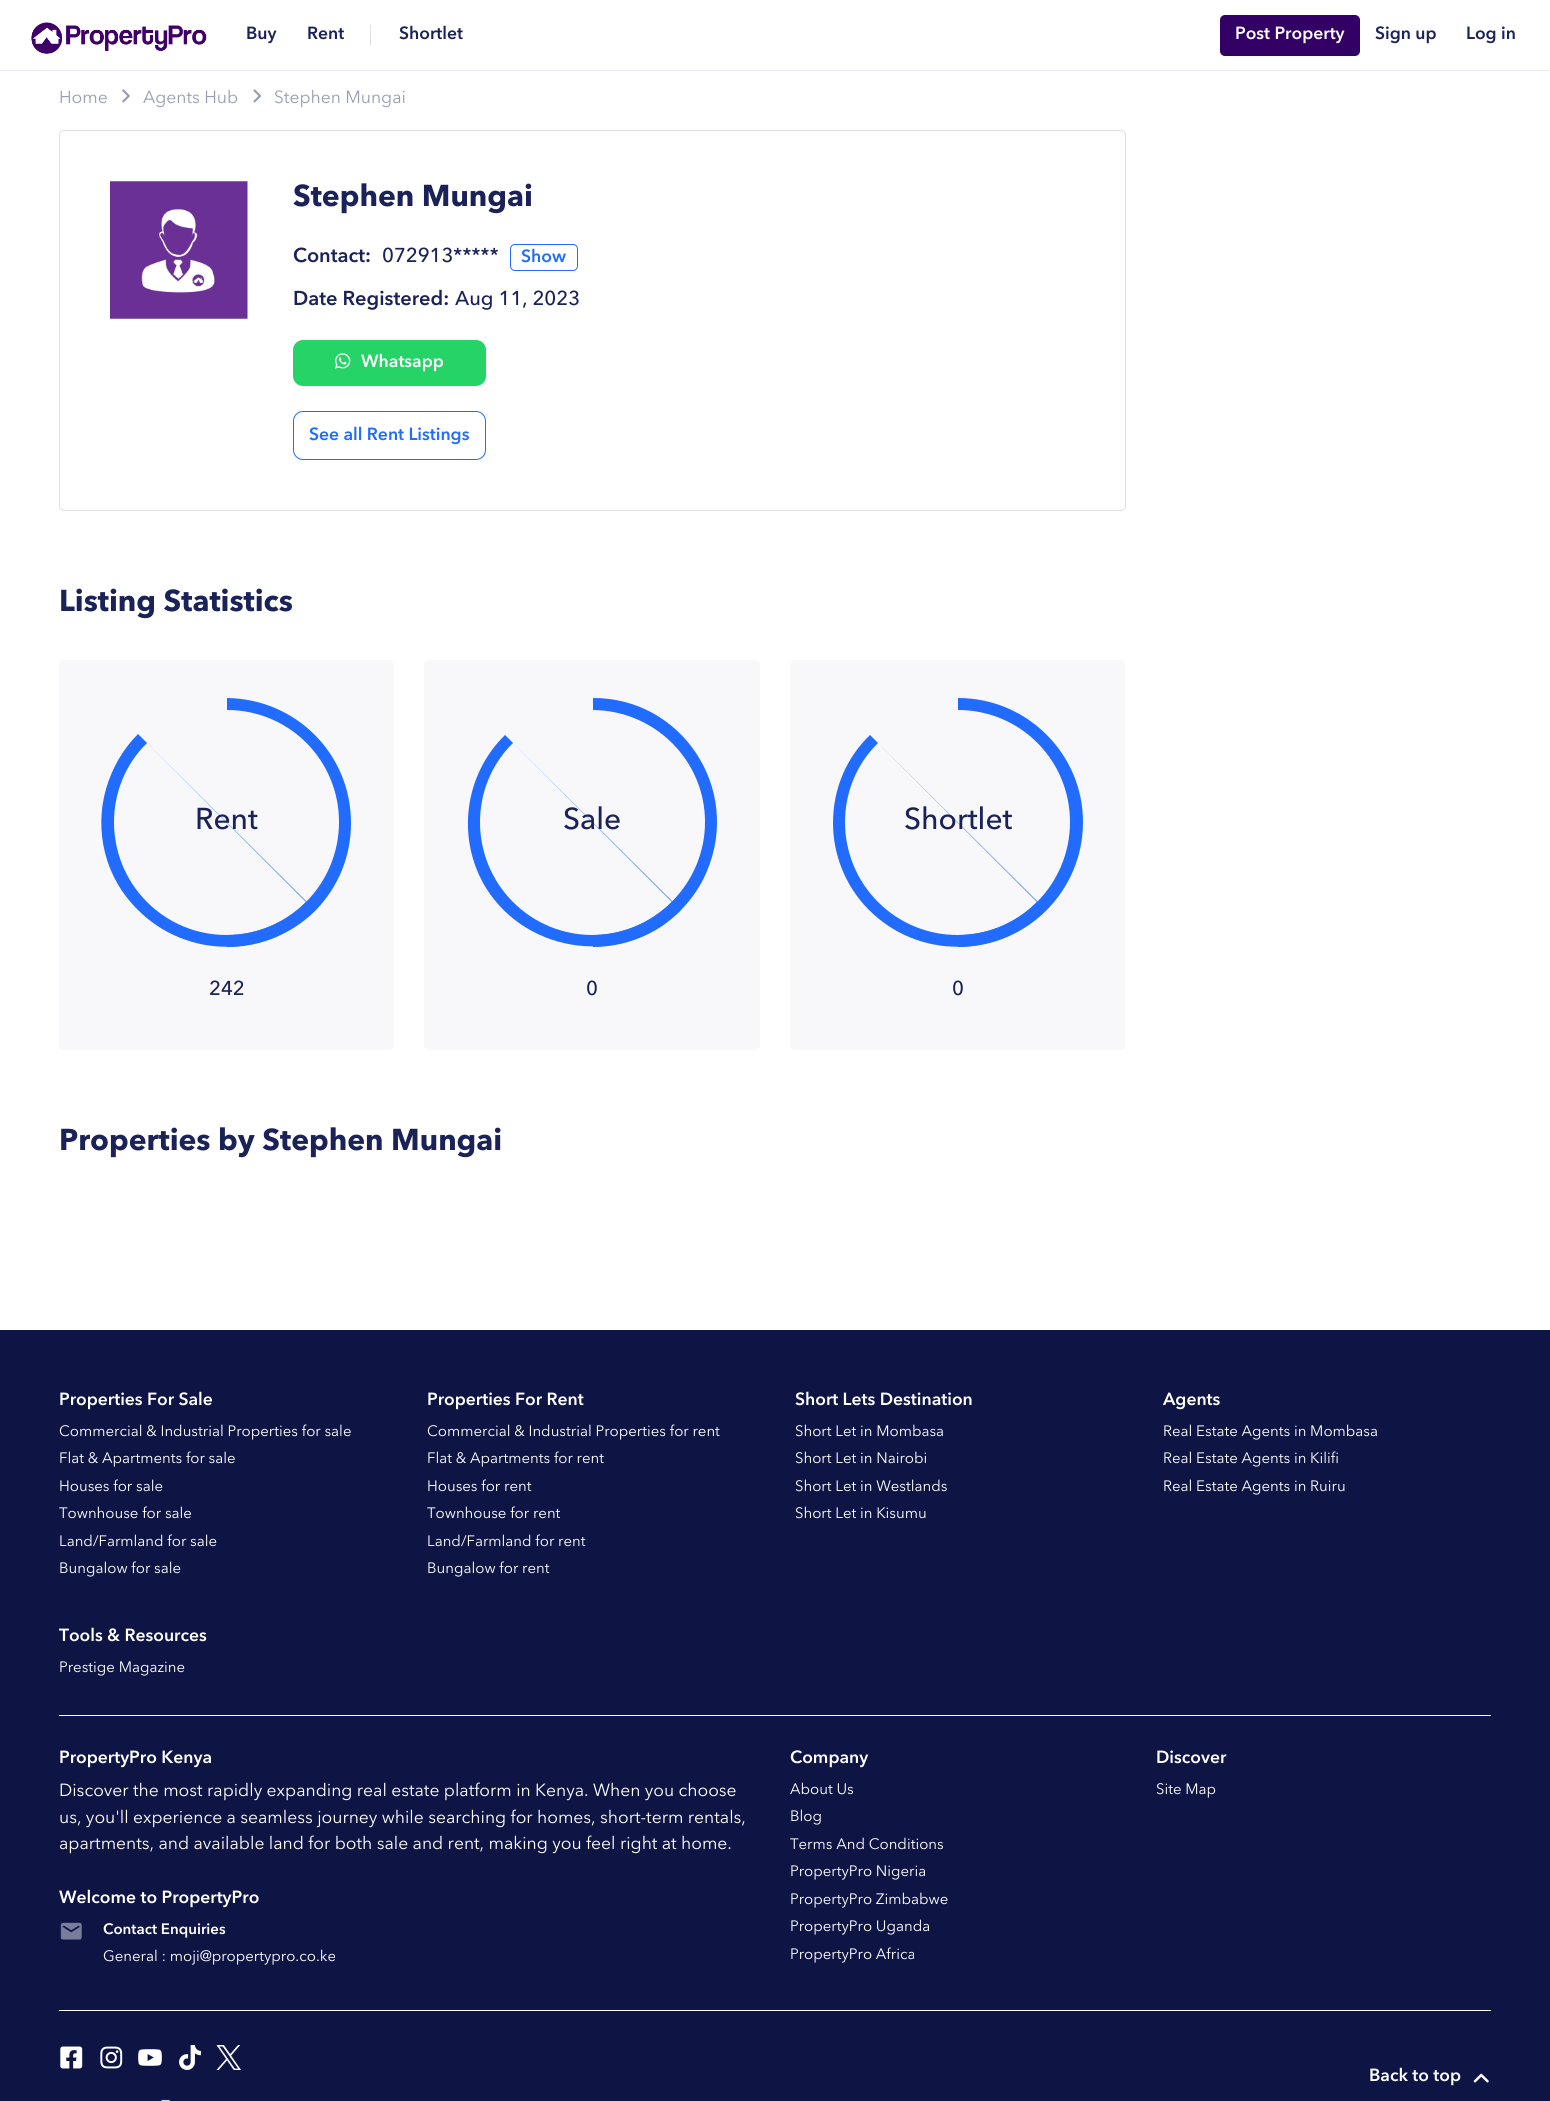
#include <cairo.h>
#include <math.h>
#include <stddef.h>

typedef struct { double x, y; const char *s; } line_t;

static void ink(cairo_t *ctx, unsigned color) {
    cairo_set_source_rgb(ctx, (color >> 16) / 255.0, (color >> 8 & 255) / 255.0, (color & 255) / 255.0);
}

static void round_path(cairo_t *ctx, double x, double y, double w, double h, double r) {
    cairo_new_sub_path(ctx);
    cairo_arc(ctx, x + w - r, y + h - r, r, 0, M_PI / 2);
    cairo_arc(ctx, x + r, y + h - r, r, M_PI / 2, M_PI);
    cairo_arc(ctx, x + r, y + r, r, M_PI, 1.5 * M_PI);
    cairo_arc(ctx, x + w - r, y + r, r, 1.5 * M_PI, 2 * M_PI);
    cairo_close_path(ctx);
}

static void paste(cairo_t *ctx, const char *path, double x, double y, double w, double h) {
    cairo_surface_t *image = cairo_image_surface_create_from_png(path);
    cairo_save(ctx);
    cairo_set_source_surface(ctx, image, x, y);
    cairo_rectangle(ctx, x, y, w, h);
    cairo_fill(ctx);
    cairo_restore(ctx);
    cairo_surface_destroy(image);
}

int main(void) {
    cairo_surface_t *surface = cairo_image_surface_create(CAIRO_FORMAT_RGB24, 1550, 2101);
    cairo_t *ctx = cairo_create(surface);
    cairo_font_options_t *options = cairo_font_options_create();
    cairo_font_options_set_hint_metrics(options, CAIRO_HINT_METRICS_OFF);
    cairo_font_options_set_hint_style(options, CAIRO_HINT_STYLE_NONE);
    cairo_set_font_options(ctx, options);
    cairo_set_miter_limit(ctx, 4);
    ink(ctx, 0xFFFFFF);
    cairo_paint(ctx);
    ink(ctx, 0xEAEBF0);
    cairo_rectangle(ctx, 0, 70, 1550, 1);
    cairo_fill(ctx);
    paste(ctx, "media/1.png", 31, 22, 176, 32);
    cairo_select_font_face(ctx, "Avenir Next SemiBold", CAIRO_FONT_SLANT_NORMAL, CAIRO_FONT_WEIGHT_NORMAL);
    cairo_set_font_size(ctx, 17.5);
    ink(ctx, 0x1A2258);
    cairo_move_to(ctx, 246, 39);
    cairo_show_text(ctx, "Buy");
    cairo_move_to(ctx, 307, 39);
    cairo_show_text(ctx, "Rent");
    ink(ctx, 0xDDDEE6);
    cairo_rectangle(ctx, 370, 25, 1, 20);
    cairo_fill(ctx);
    ink(ctx, 0x1A2258);
    cairo_move_to(ctx, 399, 39);
    cairo_show_text(ctx, "Shortlet");
    ink(ctx, 0x330066);
    round_path(ctx, 1220, 15, 140, 41, 5);
    cairo_fill(ctx);
    ink(ctx, 0xFFFFFF);
    cairo_move_to(ctx, 1235, 39);
    cairo_show_text(ctx, "Post Property");
    ink(ctx, 0x1A2258);
    cairo_move_to(ctx, 1375, 39);
    cairo_show_text(ctx, "Sign up");
    cairo_move_to(ctx, 1466, 39);
    cairo_show_text(ctx, "Log in");
    cairo_select_font_face(ctx, "Avenir Next", CAIRO_FONT_SLANT_NORMAL, CAIRO_FONT_WEIGHT_NORMAL);
    ink(ctx, 0x9A9EB5);
    cairo_move_to(ctx, 59, 103);
    cairo_show_text(ctx, "Home");
    paste(ctx, "media/2.png", 122, 89, 8, 14);
    cairo_move_to(ctx, 143, 103);
    cairo_show_text(ctx, "Agents Hub");
    paste(ctx, "media/3.png", 253, 89, 8, 14);
    cairo_move_to(ctx, 274, 103);
    cairo_show_text(ctx, "Stephen Mungai");
    round_path(ctx, 59.5, 130.5, 1066, 380, 4.5);
    ink(ctx, 0xDDDEE6);
    cairo_set_line_width(ctx, 1);
    cairo_stroke(ctx);
    paste(ctx, "media/4.png", 110, 181, 138, 138);
    cairo_select_font_face(ctx, "Avenir Next", CAIRO_FONT_SLANT_NORMAL, CAIRO_FONT_WEIGHT_BOLD);
    cairo_set_font_size(ctx, 30);
    ink(ctx, 0x1A2258);
    cairo_move_to(ctx, 293, 206);
    cairo_show_text(ctx, "Stephen Mungai");
    cairo_select_font_face(ctx, "Avenir Next SemiBold", CAIRO_FONT_SLANT_NORMAL, CAIRO_FONT_WEIGHT_NORMAL);
    cairo_set_font_size(ctx, 20);
    cairo_move_to(ctx, 293, 262);
    cairo_show_text(ctx, "Contact:");
    cairo_select_font_face(ctx, "Avenir Next Medium", CAIRO_FONT_SLANT_NORMAL, CAIRO_FONT_WEIGHT_NORMAL);
    cairo_move_to(ctx, 382, 262);
    cairo_show_text(ctx, "072913*****");
    round_path(ctx, 510.5, 244.5, 67, 26, 4.5);
    ink(ctx, 0x216BFF);
    cairo_stroke(ctx);
    cairo_select_font_face(ctx, "Avenir Next SemiBold", CAIRO_FONT_SLANT_NORMAL, CAIRO_FONT_WEIGHT_NORMAL);
    cairo_set_font_size(ctx, 17.5);
    cairo_move_to(ctx, 521, 262);
    cairo_show_text(ctx, "Show");
    cairo_set_font_size(ctx, 20);
    ink(ctx, 0x1A2258);
    cairo_move_to(ctx, 293, 305);
    cairo_show_text(ctx, "Date Registered:");
    cairo_select_font_face(ctx, "Avenir Next Medium", CAIRO_FONT_SLANT_NORMAL, CAIRO_FONT_WEIGHT_NORMAL);
    cairo_move_to(ctx, 455, 305);
    cairo_show_text(ctx, "Aug 11, 2023");
    ink(ctx, 0x25D366);
    round_path(ctx, 293, 340, 193, 46, 10);
    cairo_fill(ctx);
    paste(ctx, "media/5.png", 335, 353, 16, 16);
    cairo_select_font_face(ctx, "Avenir Next SemiBold", CAIRO_FONT_SLANT_NORMAL, CAIRO_FONT_WEIGHT_NORMAL);
    cairo_set_font_size(ctx, 17.5);
    ink(ctx, 0xFFFFFF);
    cairo_move_to(ctx, 361, 367);
    cairo_show_text(ctx, "Whatsapp");
    round_path(ctx, 293.5, 411.5, 192, 48, 9.5);
    ink(ctx, 0x216BFF);
    cairo_stroke(ctx);
    cairo_move_to(ctx, 309, 440);
    cairo_show_text(ctx, "See all Rent Listings");
    cairo_select_font_face(ctx, "Avenir Next", CAIRO_FONT_SLANT_NORMAL, CAIRO_FONT_WEIGHT_BOLD);
    cairo_set_font_size(ctx, 30);
    ink(ctx, 0x1A2258);
    cairo_move_to(ctx, 59, 611);
    cairo_show_text(ctx, "Listing Statistics");
    ink(ctx, 0xF8F8FA);
    round_path(ctx, 59, 660, 335, 390, 5);
    cairo_fill(ctx);
    ink(ctx, 0x216BFF);
    cairo_new_path(ctx);
    cairo_move_to(ctx, 227, 947);
    cairo_curve_to(ctx, 262, 947, 293, 933, 316, 910);
    cairo_curve_to(ctx, 338, 887, 351, 857, 351, 823);
    cairo_curve_to(ctx, 351, 754, 296, 699, 227, 698);
    cairo_line_to(ctx, 227, 710);
    cairo_curve_to(ctx, 289, 710, 339, 760, 339, 822);
    cairo_curve_to(ctx, 339, 884, 289, 935, 227, 935);
    cairo_close_path(ctx);
    cairo_fill(ctx);
    cairo_set_fill_rule(ctx, CAIRO_FILL_RULE_EVEN_ODD);
    cairo_new_path(ctx);
    cairo_move_to(ctx, 106, 789);
    cairo_curve_to(ctx, 112, 768, 123, 749, 138, 734);
    cairo_line_to(ctx, 315, 910);
    cairo_curve_to(ctx, 266, 959, 187, 959, 138, 910);
    cairo_curve_to(ctx, 105, 878, 94, 831, 106, 789);
    cairo_close_path(ctx);
    cairo_move_to(ctx, 147, 743);
    cairo_curve_to(ctx, 103, 786, 103, 858, 147, 902);
    cairo_curve_to(ctx, 191, 946, 262, 946, 306, 902);
    cairo_close_path(ctx);
    cairo_fill(ctx);
    cairo_select_font_face(ctx, "Avenir Next Medium", CAIRO_FONT_SLANT_NORMAL, CAIRO_FONT_WEIGHT_NORMAL);
    ink(ctx, 0x1A2258);
    cairo_move_to(ctx, 195, 829);
    cairo_show_text(ctx, "Rent");
    cairo_set_font_size(ctx, 20);
    cairo_move_to(ctx, 209, 995);
    cairo_show_text(ctx, "242");
    ink(ctx, 0xF8F8FA);
    round_path(ctx, 424, 660, 336, 390, 5);
    cairo_fill(ctx);
    ink(ctx, 0x216BFF);
    cairo_set_fill_rule(ctx, CAIRO_FILL_RULE_WINDING);
    cairo_new_path(ctx);
    cairo_move_to(ctx, 592, 947);
    cairo_curve_to(ctx, 617, 947, 641, 940, 662, 926);
    cairo_curve_to(ctx, 682, 912, 698, 893, 707, 871);
    cairo_curve_to(ctx, 742, 788, 681, 697, 592, 698);
    cairo_line_to(ctx, 592, 710);
    cairo_curve_to(ctx, 654, 710, 705, 760, 705, 822);
    cairo_curve_to(ctx, 705, 884, 654, 935, 592, 935);
    cairo_close_path(ctx);
    cairo_fill(ctx);
    ink(ctx, 0xF8F8FA);
    cairo_new_path(ctx);
    cairo_move_to(ctx, 593, 698);
    cairo_line_to(ctx, 593, 948);
    cairo_curve_to(ctx, 524, 948, 468, 892, 468, 823);
    cairo_curve_to(ctx, 468, 754, 524, 698, 593, 698);
    cairo_close_path(ctx);
    cairo_fill(ctx);
    ink(ctx, 0x216BFF);
    cairo_set_fill_rule(ctx, CAIRO_FILL_RULE_EVEN_ODD);
    cairo_new_path(ctx);
    cairo_move_to(ctx, 486, 888);
    cairo_curve_to(ctx, 456, 839, 464, 775, 505, 735);
    cairo_line_to(ctx, 681, 910);
    cairo_curve_to(ctx, 624, 967, 528, 955, 486, 888);
    cairo_close_path(ctx);
    cairo_move_to(ctx, 513, 743);
    cairo_curve_to(ctx, 469, 786, 469, 858, 513, 902);
    cairo_curve_to(ctx, 557, 946, 628, 946, 672, 902);
    cairo_close_path(ctx);
    cairo_fill(ctx);
    cairo_set_font_size(ctx, 30);
    ink(ctx, 0x1A2258);
    cairo_move_to(ctx, 563, 829);
    cairo_show_text(ctx, "Sale");
    cairo_set_font_size(ctx, 20);
    cairo_move_to(ctx, 586, 995);
    cairo_show_text(ctx, "0");
    ink(ctx, 0xF8F8FA);
    round_path(ctx, 790, 660, 335, 390, 5);
    cairo_fill(ctx);
    ink(ctx, 0x216BFF);
    cairo_set_fill_rule(ctx, CAIRO_FILL_RULE_WINDING);
    cairo_new_path(ctx);
    cairo_move_to(ctx, 958, 947);
    cairo_curve_to(ctx, 1027, 947, 1083, 891, 1083, 822);
    cairo_curve_to(ctx, 1083, 754, 1027, 698, 958, 698);
    cairo_line_to(ctx, 958, 710);
    cairo_curve_to(ctx, 1020, 710, 1070, 760, 1070, 822);
    cairo_curve_to(ctx, 1070, 884, 1020, 935, 958, 935);
    cairo_close_path(ctx);
    cairo_fill(ctx);
    cairo_set_fill_rule(ctx, CAIRO_FILL_RULE_EVEN_ODD);
    cairo_new_path(ctx);
    cairo_move_to(ctx, 870, 735);
    cairo_line_to(ctx, 1046, 910);
    cairo_curve_to(ctx, 997, 959, 918, 959, 869, 910);
    cairo_curve_to(ctx, 845, 886, 833, 854, 833, 823);
    cairo_curve_to(ctx, 833, 788, 847, 757, 870, 735);
    cairo_close_path(ctx);
    cairo_move_to(ctx, 878, 743);
    cairo_curve_to(ctx, 834, 786, 834, 858, 878, 902);
    cairo_curve_to(ctx, 922, 946, 993, 946, 1037, 902);
    cairo_close_path(ctx);
    cairo_fill(ctx);
    cairo_set_font_size(ctx, 30);
    ink(ctx, 0x1A2258);
    cairo_move_to(ctx, 904, 829);
    cairo_show_text(ctx, "Shortlet");
    cairo_set_font_size(ctx, 20);
    cairo_move_to(ctx, 952, 995);
    cairo_show_text(ctx, "0");
    cairo_select_font_face(ctx, "Avenir Next", CAIRO_FONT_SLANT_NORMAL, CAIRO_FONT_WEIGHT_BOLD);
    cairo_set_font_size(ctx, 30);
    cairo_move_to(ctx, 59, 1150);
    cairo_show_text(ctx, "Properties by Stephen Mungai");
    ink(ctx, 0x0E1545);
    cairo_rectangle(ctx, 0, 1330, 1550, 771);
    cairo_fill(ctx);
    ink(ctx, 0xFFFFFF);
    cairo_rectangle(ctx, 59, 1715, 1432, 1);
    cairo_fill(ctx);
    cairo_select_font_face(ctx, "Avenir Next SemiBold", CAIRO_FONT_SLANT_NORMAL, CAIRO_FONT_WEIGHT_NORMAL);
    cairo_set_font_size(ctx, 17.5);
    cairo_move_to(ctx, 59, 1405);
    cairo_show_text(ctx, "Properties For Sale");
    cairo_select_font_face(ctx, "Avenir Next", CAIRO_FONT_SLANT_NORMAL, CAIRO_FONT_WEIGHT_NORMAL);
    cairo_set_font_size(ctx, 15);
    {
        static const line_t items[] = {
            {59, 1436, "Commercial & Industrial Properties for sale"},
            {59, 1463, "Flat & Apartments for sale"},
            {59, 1491, "Houses for sale"},
            {59, 1518, "Townhouse for sale"},
            {59, 1546, "Land/Farmland for sale"},
            {59, 1573, "Bungalow for sale"},
        };
        for (size_t i = 0; i < sizeof items / sizeof *items; i++) {
            cairo_move_to(ctx, items[i].x, items[i].y);
            cairo_show_text(ctx, items[i].s);
        }
    }
    cairo_select_font_face(ctx, "Avenir Next SemiBold", CAIRO_FONT_SLANT_NORMAL, CAIRO_FONT_WEIGHT_NORMAL);
    cairo_set_font_size(ctx, 17.5);
    cairo_move_to(ctx, 427, 1405);
    cairo_show_text(ctx, "Properties For Rent");
    cairo_select_font_face(ctx, "Avenir Next", CAIRO_FONT_SLANT_NORMAL, CAIRO_FONT_WEIGHT_NORMAL);
    cairo_set_font_size(ctx, 15);
    {
        static const line_t items[] = {
            {427, 1436, "Commercial & Industrial Properties for rent"},
            {427, 1463, "Flat & Apartments for rent"},
            {427, 1491, "Houses for rent"},
            {427, 1518, "Townhouse for rent"},
            {427, 1546, "Land/Farmland for rent"},
            {427, 1573, "Bungalow for rent"},
        };
        for (size_t i = 0; i < sizeof items / sizeof *items; i++) {
            cairo_move_to(ctx, items[i].x, items[i].y);
            cairo_show_text(ctx, items[i].s);
        }
    }
    cairo_select_font_face(ctx, "Avenir Next SemiBold", CAIRO_FONT_SLANT_NORMAL, CAIRO_FONT_WEIGHT_NORMAL);
    cairo_set_font_size(ctx, 17.5);
    cairo_move_to(ctx, 795, 1405);
    cairo_show_text(ctx, "Short Lets Destination");
    cairo_select_font_face(ctx, "Avenir Next", CAIRO_FONT_SLANT_NORMAL, CAIRO_FONT_WEIGHT_NORMAL);
    cairo_set_font_size(ctx, 15);
    {
        static const line_t items[] = {
            {795, 1436, "Short Let in Mombasa"},
            {795, 1463, "Short Let in Nairobi"},
            {795, 1491, "Short Let in Westlands"},
            {795, 1518, "Short Let in Kisumu"},
        };
        for (size_t i = 0; i < sizeof items / sizeof *items; i++) {
            cairo_move_to(ctx, items[i].x, items[i].y);
            cairo_show_text(ctx, items[i].s);
        }
    }
    cairo_select_font_face(ctx, "Avenir Next SemiBold", CAIRO_FONT_SLANT_NORMAL, CAIRO_FONT_WEIGHT_NORMAL);
    cairo_set_font_size(ctx, 17.5);
    cairo_move_to(ctx, 1163, 1405);
    cairo_show_text(ctx, "Agents");
    cairo_select_font_face(ctx, "Avenir Next", CAIRO_FONT_SLANT_NORMAL, CAIRO_FONT_WEIGHT_NORMAL);
    cairo_set_font_size(ctx, 15);
    {
        static const line_t items[] = {
            {1163, 1436, "Real Estate Agents in Mombasa"},
            {1163, 1463, "Real Estate Agents in Kilifi"},
            {1163, 1491, "Real Estate Agents in Ruiru"},
        };
        for (size_t i = 0; i < sizeof items / sizeof *items; i++) {
            cairo_move_to(ctx, items[i].x, items[i].y);
            cairo_show_text(ctx, items[i].s);
        }
    }
    cairo_select_font_face(ctx, "Avenir Next SemiBold", CAIRO_FONT_SLANT_NORMAL, CAIRO_FONT_WEIGHT_NORMAL);
    cairo_set_font_size(ctx, 17.5);
    cairo_move_to(ctx, 59, 1641);
    cairo_show_text(ctx, "Tools & Resources");
    cairo_select_font_face(ctx, "Avenir Next", CAIRO_FONT_SLANT_NORMAL, CAIRO_FONT_WEIGHT_NORMAL);
    cairo_set_font_size(ctx, 15);
    cairo_move_to(ctx, 59, 1672);
    cairo_show_text(ctx, "Prestige Magazine");
    cairo_rectangle(ctx, 59, 2010, 1432, 1);
    cairo_fill(ctx);
    cairo_select_font_face(ctx, "Avenir Next SemiBold", CAIRO_FONT_SLANT_NORMAL, CAIRO_FONT_WEIGHT_NORMAL);
    cairo_set_font_size(ctx, 17.5);
    cairo_move_to(ctx, 59, 1763);
    cairo_show_text(ctx, "PropertyPro Kenya");
    cairo_select_font_face(ctx, "Avenir Next", CAIRO_FONT_SLANT_NORMAL, CAIRO_FONT_WEIGHT_NORMAL);
    {
        static const line_t items[] = {
            {59, 1796, "Discover the most rapidly expanding real estate platform in Kenya. When you choose"},
            {59, 1823, "us, you'll experience a seamless journey while searching for homes, short-term rentals,"},
            {59, 1849, "apartments, and available land for both sale and rent, making you feel right at home."},
        };
        for (size_t i = 0; i < sizeof items / sizeof *items; i++) {
            cairo_move_to(ctx, items[i].x, items[i].y);
            cairo_show_text(ctx, items[i].s);
        }
    }
    cairo_select_font_face(ctx, "Avenir Next SemiBold", CAIRO_FONT_SLANT_NORMAL, CAIRO_FONT_WEIGHT_NORMAL);
    cairo_move_to(ctx, 59, 1903);
    cairo_show_text(ctx, "Welcome to PropertyPro");
    paste(ctx, "media/6.png", 60, 1922, 22, 18);
    cairo_set_font_size(ctx, 15);
    cairo_move_to(ctx, 103, 1934);
    cairo_show_text(ctx, "Contact Enquiries");
    cairo_select_font_face(ctx, "Avenir Next", CAIRO_FONT_SLANT_NORMAL, CAIRO_FONT_WEIGHT_NORMAL);
    cairo_move_to(ctx, 103, 1961);
    cairo_show_text(ctx, "General : moji@propertypro.co.ke");
    cairo_select_font_face(ctx, "Avenir Next SemiBold", CAIRO_FONT_SLANT_NORMAL, CAIRO_FONT_WEIGHT_NORMAL);
    cairo_set_font_size(ctx, 17.5);
    cairo_move_to(ctx, 790, 1763);
    cairo_show_text(ctx, "Company");
    cairo_select_font_face(ctx, "Avenir Next", CAIRO_FONT_SLANT_NORMAL, CAIRO_FONT_WEIGHT_NORMAL);
    cairo_set_font_size(ctx, 15);
    {
        static const line_t items[] = {
            {790, 1794, "About Us"},
            {790, 1821, "Blog"},
            {790, 1849, "Terms And Conditions"},
            {790, 1876, "PropertyPro Nigeria"},
            {790, 1904, "PropertyPro Zimbabwe"},
            {790, 1931, "PropertyPro Uganda"},
            {790, 1959, "PropertyPro Africa"},
        };
        for (size_t i = 0; i < sizeof items / sizeof *items; i++) {
            cairo_move_to(ctx, items[i].x, items[i].y);
            cairo_show_text(ctx, items[i].s);
        }
    }
    cairo_select_font_face(ctx, "Avenir Next SemiBold", CAIRO_FONT_SLANT_NORMAL, CAIRO_FONT_WEIGHT_NORMAL);
    cairo_set_font_size(ctx, 17.5);
    cairo_move_to(ctx, 1156, 1763);
    cairo_show_text(ctx, "Discover");
    cairo_select_font_face(ctx, "Avenir Next", CAIRO_FONT_SLANT_NORMAL, CAIRO_FONT_WEIGHT_NORMAL);
    cairo_set_font_size(ctx, 15);
    cairo_move_to(ctx, 1156, 1794);
    cairo_show_text(ctx, "Site Map");
    cairo_select_font_face(ctx, "Avenir Next SemiBold", CAIRO_FONT_SLANT_NORMAL, CAIRO_FONT_WEIGHT_NORMAL);
    cairo_set_font_size(ctx, 17.5);
    cairo_move_to(ctx, 1369, 2081);
    cairo_show_text(ctx, "Back to top");
    paste(ctx, "media/7.png", 1473, 2073, 16, 10);
    paste(ctx, "media/8.png", 60, 2046, 23, 23);
    paste(ctx, "media/9.png", 100, 2046, 23, 23);
    paste(ctx, "media/10.png", 138, 2049, 24, 17);
    paste(ctx, "media/11.png", 179, 2045, 22, 25);
    paste(ctx, "media/12.png", 216, 2045, 26, 25);
    cairo_select_font_face(ctx, "Avenir Next", CAIRO_FONT_SLANT_NORMAL, CAIRO_FONT_WEIGHT_NORMAL);
    cairo_set_font_size(ctx, 15);
    cairo_move_to(ctx, 161, 2104);
    cairo_show_text(ctx, "—");
    cairo_surface_write_to_png(surface, "image.png");
    cairo_font_options_destroy(options);
    cairo_destroy(ctx);
    cairo_surface_destroy(surface);
    return 0;
}
